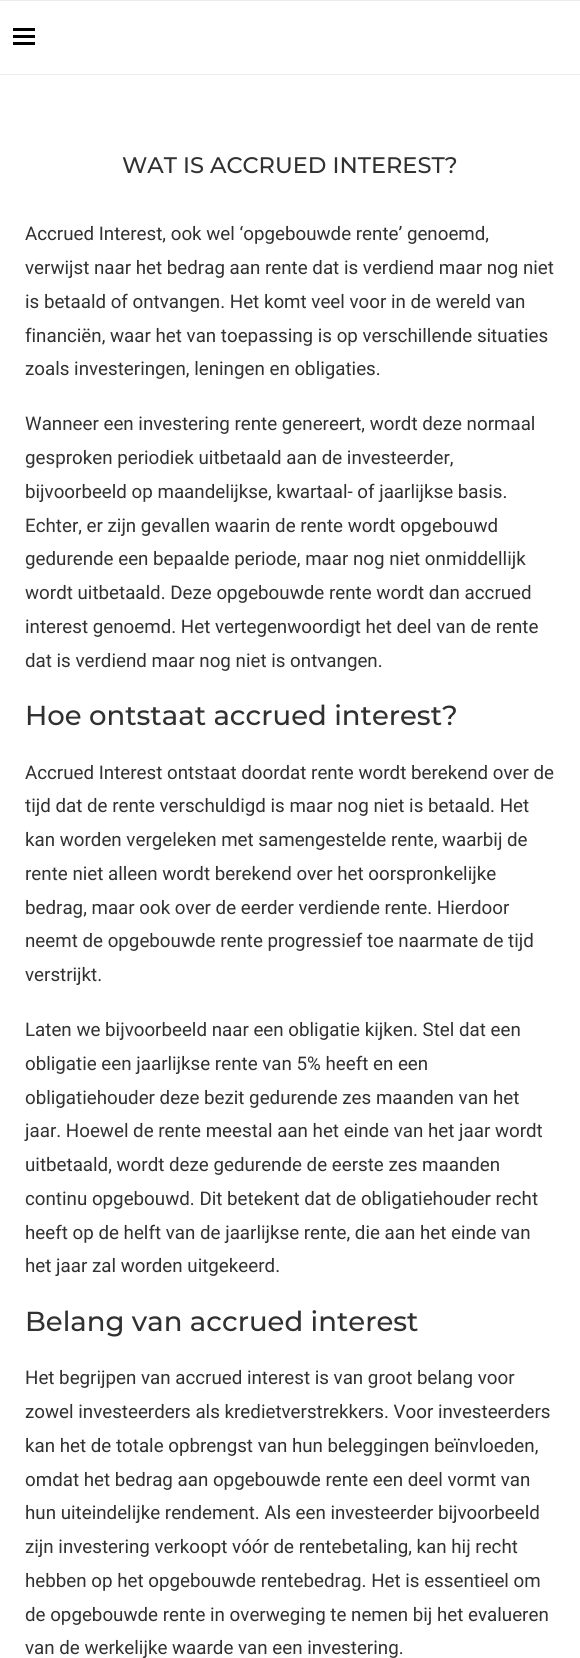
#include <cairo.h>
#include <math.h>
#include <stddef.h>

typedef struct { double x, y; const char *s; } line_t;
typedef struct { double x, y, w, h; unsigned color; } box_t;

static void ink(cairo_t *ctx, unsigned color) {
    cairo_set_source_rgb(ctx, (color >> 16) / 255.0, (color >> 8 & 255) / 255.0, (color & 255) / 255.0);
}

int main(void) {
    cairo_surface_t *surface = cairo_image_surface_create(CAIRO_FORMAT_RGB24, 580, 1658);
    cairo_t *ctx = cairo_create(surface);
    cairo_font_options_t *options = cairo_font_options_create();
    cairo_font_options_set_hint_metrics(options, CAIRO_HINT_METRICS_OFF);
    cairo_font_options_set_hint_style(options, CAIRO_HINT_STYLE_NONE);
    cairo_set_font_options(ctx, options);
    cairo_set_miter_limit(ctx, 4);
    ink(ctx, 0xFFFFFF);
    cairo_paint(ctx);
    {
        static const box_t items[] = {
            {0, 0, 580, 1, 0xECECEC},
            {0, 74, 580, 1, 0xECECEC},
            {13, 28, 22, 3, 0x000000},
            {13, 35, 22, 3, 0x000000},
            {13, 42, 22, 3, 0x000000},
        };
        for (size_t i = 0; i < sizeof items / sizeof *items; i++) {
            ink(ctx, items[i].color);
            cairo_rectangle(ctx, items[i].x, items[i].y, items[i].w, items[i].h);
            cairo_fill(ctx);
        }
    }
    cairo_select_font_face(ctx, "Montserrat Medium", CAIRO_FONT_SLANT_NORMAL, CAIRO_FONT_WEIGHT_NORMAL);
    cairo_set_font_size(ctx, 22.5);
    ink(ctx, 0x313131);
    cairo_move_to(ctx, 122, 173);
    cairo_show_text(ctx, "WAT IS ACCRUED INTEREST?");
    cairo_select_font_face(ctx, "Roboto", CAIRO_FONT_SLANT_NORMAL, CAIRO_FONT_WEIGHT_NORMAL);
    cairo_set_font_size(ctx, 18.75);
    {
        static const line_t items[] = {
            {25, 240, "Accrued Interest, ook wel ‘opgebouwde rente’ genoemd,"},
            {25, 274, "verwijst naar het bedrag aan rente dat is verdiend maar nog niet"},
            {25, 308, "is betaald of ontvangen. Het komt veel voor in de wereld van"},
            {25, 342, "financiën, waar het van toepassing is op verschillende situaties"},
            {25, 375, "zoals investeringen, leningen en obligaties."},
            {25, 430, "Wanneer een investering rente genereert, wordt deze normaal"},
            {25, 464, "gesproken periodiek uitbetaald aan de investeerder,"},
            {25, 498, "bijvoorbeeld op maandelijkse, kwartaal- of jaarlijkse basis."},
            {25, 532, "Echter, er zijn gevallen waarin de rente wordt opgebouwd"},
            {25, 565, "gedurende een bepaalde periode, maar nog niet onmiddellijk"},
            {25, 599, "wordt uitbetaald. Deze opgebouwde rente wordt dan accrued"},
            {25, 633, "interest genoemd. Het vertegenwoordigt het deel van de rente"},
            {25, 667, "dat is verdiend maar nog niet is ontvangen."},
        };
        for (size_t i = 0; i < sizeof items / sizeof *items; i++) {
            cairo_move_to(ctx, items[i].x, items[i].y);
            cairo_show_text(ctx, items[i].s);
        }
    }
    cairo_select_font_face(ctx, "Montserrat Medium", CAIRO_FONT_SLANT_NORMAL, CAIRO_FONT_WEIGHT_NORMAL);
    cairo_set_font_size(ctx, 27.5);
    cairo_move_to(ctx, 25, 725);
    cairo_show_text(ctx, "Hoe ontstaat accrued interest?");
    cairo_select_font_face(ctx, "Roboto", CAIRO_FONT_SLANT_NORMAL, CAIRO_FONT_WEIGHT_NORMAL);
    cairo_set_font_size(ctx, 18.75);
    {
        static const line_t items[] = {
            {25, 779, "Accrued Interest ontstaat doordat rente wordt berekend over de"},
            {25, 812, "tijd dat de rente verschuldigd is maar nog niet is betaald. Het"},
            {25, 846, "kan worden vergeleken met samengestelde rente, waarbij de"},
            {25, 880, "rente niet alleen wordt berekend over het oorspronkelijke"},
            {25, 914, "bedrag, maar ook over de eerder verdiende rente. Hierdoor"},
            {25, 947, "neemt de opgebouwde rente progressief toe naarmate de tijd"},
            {25, 981, "verstrijkt."},
            {25, 1036, "Laten we bijvoorbeeld naar een obligatie kijken. Stel dat een"},
            {25, 1070, "obligatie een jaarlijkse rente van 5% heeft en een"},
            {25, 1104, "obligatiehouder deze bezit gedurende zes maanden van het"},
            {25, 1137, "jaar. Hoewel de rente meestal aan het einde van het jaar wordt"},
            {25, 1171, "uitbetaald, wordt deze gedurende de eerste zes maanden"},
            {25, 1205, "continu opgebouwd. Dit betekent dat de obligatiehouder recht"},
            {25, 1239, "heeft op de helft van de jaarlijkse rente, die aan het einde van"},
            {25, 1272, "het jaar zal worden uitgekeerd."},
        };
        for (size_t i = 0; i < sizeof items / sizeof *items; i++) {
            cairo_move_to(ctx, items[i].x, items[i].y);
            cairo_show_text(ctx, items[i].s);
        }
    }
    cairo_select_font_face(ctx, "Montserrat Medium", CAIRO_FONT_SLANT_NORMAL, CAIRO_FONT_WEIGHT_NORMAL);
    cairo_set_font_size(ctx, 27.5);
    cairo_move_to(ctx, 25, 1331);
    cairo_show_text(ctx, "Belang van accrued interest");
    cairo_select_font_face(ctx, "Roboto", CAIRO_FONT_SLANT_NORMAL, CAIRO_FONT_WEIGHT_NORMAL);
    cairo_set_font_size(ctx, 18.75);
    {
        static const line_t items[] = {
            {25, 1384, "Het begrijpen van accrued interest is van groot belang voor"},
            {25, 1418, "zowel investeerders als kredietverstrekkers. Voor investeerders"},
            {25, 1452, "kan het de totale opbrengst van hun beleggingen beïnvloeden,"},
            {25, 1486, "omdat het bedrag aan opgebouwde rente een deel vormt van"},
            {25, 1519, "hun uiteindelijke rendement. Als een investeerder bijvoorbeeld"},
            {25, 1553, "zijn investering verkoopt vóór de rentebetaling, kan hij recht"},
            {25, 1587, "hebben op het opgebouwde rentebedrag. Het is essentieel om"},
            {25, 1621, "de opgebouwde rente in overweging te nemen bij het evalueren"},
            {25, 1654, "van de werkelijke waarde van een investering."},
        };
        for (size_t i = 0; i < sizeof items / sizeof *items; i++) {
            cairo_move_to(ctx, items[i].x, items[i].y);
            cairo_show_text(ctx, items[i].s);
        }
    }
    cairo_surface_write_to_png(surface, "image.png");
    cairo_font_options_destroy(options);
    cairo_destroy(ctx);
    cairo_surface_destroy(surface);
    return 0;
}
